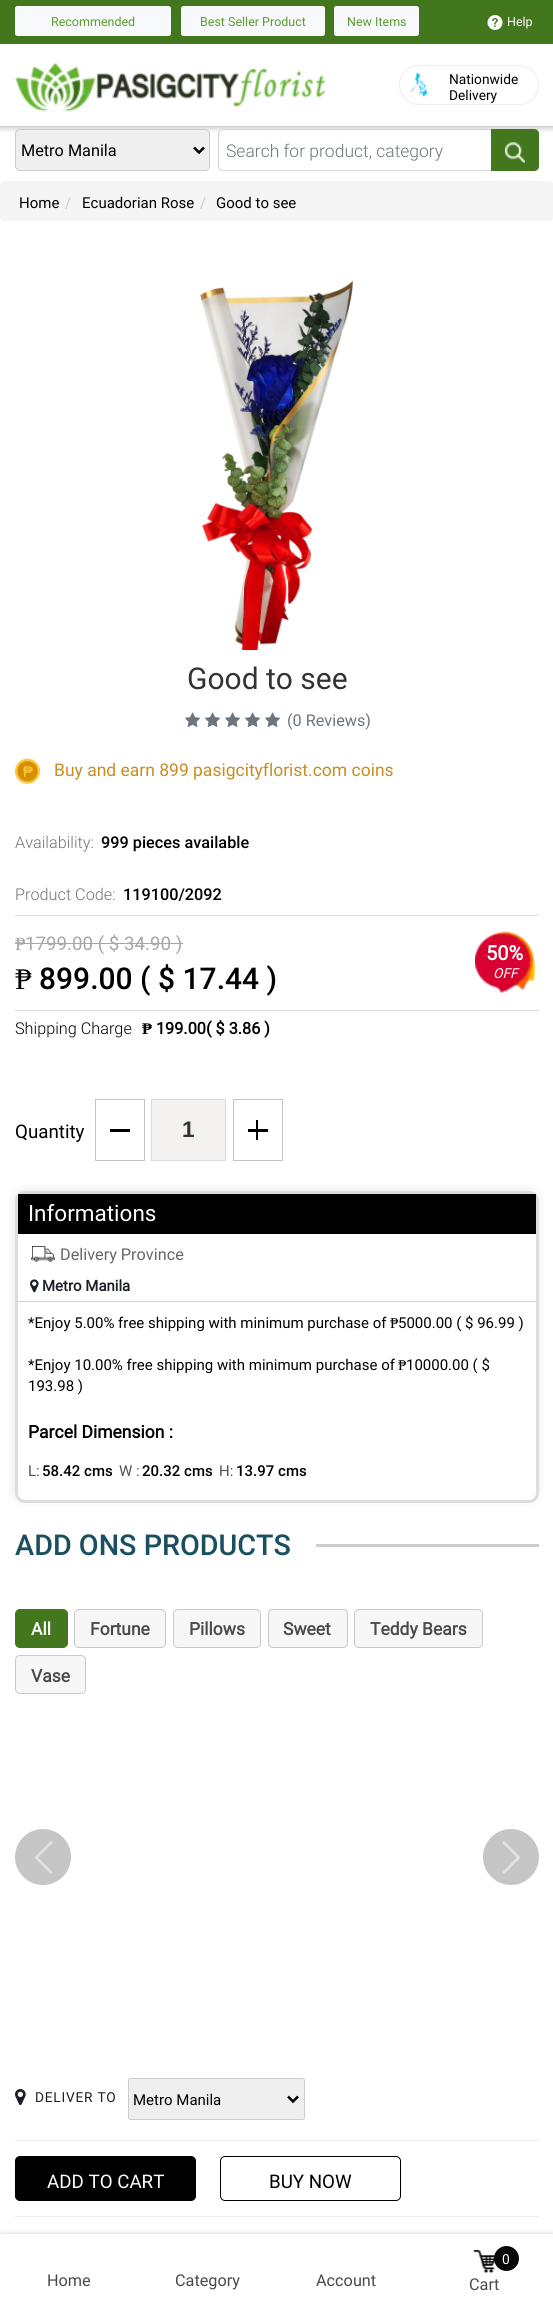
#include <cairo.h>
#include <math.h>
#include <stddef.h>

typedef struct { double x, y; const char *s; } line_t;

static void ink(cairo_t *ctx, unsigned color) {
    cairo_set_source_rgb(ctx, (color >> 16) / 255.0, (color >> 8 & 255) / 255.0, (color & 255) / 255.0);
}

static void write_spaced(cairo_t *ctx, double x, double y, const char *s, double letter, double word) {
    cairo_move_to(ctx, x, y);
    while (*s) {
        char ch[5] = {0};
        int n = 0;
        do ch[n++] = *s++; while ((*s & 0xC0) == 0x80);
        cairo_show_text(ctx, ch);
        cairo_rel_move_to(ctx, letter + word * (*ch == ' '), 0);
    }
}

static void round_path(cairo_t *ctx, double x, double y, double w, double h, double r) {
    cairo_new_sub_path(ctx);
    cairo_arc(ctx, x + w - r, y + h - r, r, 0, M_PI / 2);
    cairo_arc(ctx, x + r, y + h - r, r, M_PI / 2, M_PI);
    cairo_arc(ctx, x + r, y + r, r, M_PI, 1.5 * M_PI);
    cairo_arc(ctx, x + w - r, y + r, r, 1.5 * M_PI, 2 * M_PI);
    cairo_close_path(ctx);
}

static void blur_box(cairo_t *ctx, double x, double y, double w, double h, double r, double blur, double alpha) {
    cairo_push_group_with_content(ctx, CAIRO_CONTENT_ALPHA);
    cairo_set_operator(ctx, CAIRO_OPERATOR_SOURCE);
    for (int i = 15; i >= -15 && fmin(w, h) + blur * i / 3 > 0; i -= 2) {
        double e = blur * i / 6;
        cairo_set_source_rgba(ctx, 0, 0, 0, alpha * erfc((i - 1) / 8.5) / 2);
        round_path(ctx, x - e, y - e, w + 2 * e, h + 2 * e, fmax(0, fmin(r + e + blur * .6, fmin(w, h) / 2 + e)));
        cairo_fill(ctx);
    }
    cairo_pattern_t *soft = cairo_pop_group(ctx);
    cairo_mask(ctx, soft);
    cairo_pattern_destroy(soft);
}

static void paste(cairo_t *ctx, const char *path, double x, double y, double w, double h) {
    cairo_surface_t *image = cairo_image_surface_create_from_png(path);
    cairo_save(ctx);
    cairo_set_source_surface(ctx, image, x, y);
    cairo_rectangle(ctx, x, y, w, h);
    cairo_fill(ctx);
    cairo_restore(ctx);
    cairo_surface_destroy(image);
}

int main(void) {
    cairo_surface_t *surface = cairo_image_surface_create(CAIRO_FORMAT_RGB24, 553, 2307);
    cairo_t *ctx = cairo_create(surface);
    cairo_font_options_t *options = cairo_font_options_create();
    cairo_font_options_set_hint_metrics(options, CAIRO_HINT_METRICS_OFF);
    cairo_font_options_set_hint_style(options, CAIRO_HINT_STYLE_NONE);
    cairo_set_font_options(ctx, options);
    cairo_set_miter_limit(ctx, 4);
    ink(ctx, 0xFFFFFF);
    cairo_paint(ctx);
    cairo_save(ctx);
    cairo_rectangle(ctx, 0, 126, 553, 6);
    cairo_clip(ctx);
    ink(ctx, 0x000000);
    blur_box(ctx, 0, 1, 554, 127, 0, 3, 0.25);
    cairo_restore(ctx);
    ink(ctx, 0x42771D);
    cairo_rectangle(ctx, 0, 0, 553, 44);
    cairo_fill(ctx);
    ink(ctx, 0xF8F9FA);
    round_path(ctx, 15.5, 6.5, 155, 29, 2);
    cairo_fill_preserve(ctx);
    cairo_set_line_width(ctx, 1);
    cairo_stroke(ctx);
    cairo_select_font_face(ctx, "Roboto", CAIRO_FONT_SLANT_NORMAL, CAIRO_FONT_WEIGHT_NORMAL);
    cairo_set_font_size(ctx, 12.5);
    ink(ctx, 0x5C9B31);
    cairo_move_to(ctx, 51, 26);
    cairo_show_text(ctx, "Recommended");
    ink(ctx, 0xF8F9FA);
    round_path(ctx, 181.5, 6.5, 143, 29, 2);
    cairo_fill_preserve(ctx);
    cairo_stroke(ctx);
    ink(ctx, 0x5C9B31);
    cairo_move_to(ctx, 200, 26);
    cairo_show_text(ctx, "Best Seller Product");
    ink(ctx, 0xF8F9FA);
    round_path(ctx, 334.5, 6.5, 84, 29, 2);
    cairo_fill_preserve(ctx);
    cairo_stroke(ctx);
    ink(ctx, 0x5C9B31);
    cairo_move_to(ctx, 347, 26);
    cairo_show_text(ctx, "New Items");
    paste(ctx, "media/1.png", 487, 15, 16, 15);
    ink(ctx, 0xFFFFFF);
    cairo_move_to(ctx, 507, 26);
    cairo_show_text(ctx, "Help");
    paste(ctx, "media/2.png", 15, 62, 311, 50);
    round_path(ctx, 399.5, 65.5, 139, 39, 19.5);
    ink(ctx, 0xEDEDED);
    cairo_stroke(ctx);
    paste(ctx, "media/3.png", 410, 72, 18, 25);
    cairo_set_font_size(ctx, 13.75);
    ink(ctx, 0x000000);
    cairo_move_to(ctx, 449, 84);
    cairo_show_text(ctx, "Nationwide");
    cairo_move_to(ctx, 449, 100);
    cairo_show_text(ctx, "Delivery");
    ink(ctx, 0xEFEFEF);
    round_path(ctx, 15.5, 129.5, 194, 41, 4.5);
    cairo_fill_preserve(ctx);
    ink(ctx, 0xCCCCCC);
    cairo_stroke(ctx);
    cairo_new_path(ctx);
    cairo_move_to(ctx, 194, 147.5);
    cairo_line_to(ctx, 199, 152.5);
    cairo_line_to(ctx, 204, 147.5);
    ink(ctx, 0x000000);
    cairo_set_line_width(ctx, 2.5);
    cairo_stroke(ctx);
    cairo_set_font_size(ctx, 16.25);
    cairo_move_to(ctx, 21, 156);
    cairo_show_text(ctx, "Metro Manila");
    ink(ctx, 0xFFFFFF);
    round_path(ctx, 218.5, 129.5, 320, 41, 4.5);
    cairo_fill_preserve(ctx);
    ink(ctx, 0xCED4DA);
    cairo_set_line_width(ctx, 1);
    cairo_stroke(ctx);
    cairo_select_font_face(ctx, "Roboto Light", CAIRO_FONT_SLANT_NORMAL, CAIRO_FONT_WEIGHT_NORMAL);
    cairo_set_font_size(ctx, 17.5);
    ink(ctx, 0x6C757D);
    cairo_move_to(ctx, 226, 157);
    cairo_show_text(ctx, "Search for product, category");
    ink(ctx, 0x42771D);
    cairo_new_path(ctx);
    cairo_move_to(ctx, 491, 129);
    cairo_line_to(ctx, 534, 129);
    cairo_curve_to(ctx, 537, 129, 539, 131, 539, 134);
    cairo_line_to(ctx, 539, 166);
    cairo_curve_to(ctx, 539, 169, 537, 171, 534, 171);
    cairo_line_to(ctx, 491, 171);
    cairo_close_path(ctx);
    cairo_fill(ctx);
    paste(ctx, "media/4.png", 505, 142, 20, 22);
    ink(ctx, 0xF5F5F5);
    round_path(ctx, 0, 181, 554, 40, 5);
    cairo_fill(ctx);
    cairo_select_font_face(ctx, "Roboto", CAIRO_FONT_SLANT_NORMAL, CAIRO_FONT_WEIGHT_NORMAL);
    cairo_set_font_size(ctx, 15);
    ink(ctx, 0x000000);
    cairo_move_to(ctx, 19, 208);
    cairo_show_text(ctx, "Home");
    ink(ctx, 0xCCCCCC);
    cairo_move_to(ctx, 65, 208);
    cairo_show_text(ctx, "/");
    ink(ctx, 0x000000);
    cairo_move_to(ctx, 82, 208);
    cairo_show_text(ctx, "Ecuadorian Rose");
    ink(ctx, 0xCCCCCC);
    cairo_move_to(ctx, 200, 208);
    cairo_show_text(ctx, "/");
    ink(ctx, 0x000000);
    cairo_move_to(ctx, 216, 208);
    cairo_show_text(ctx, "Good to see");
    paste(ctx, "media/5.png", 200, 280, 154, 370);
    cairo_set_font_size(ctx, 30);
    ink(ctx, 0x333333);
    cairo_move_to(ctx, 187, 689);
    cairo_show_text(ctx, "Good to see");
    paste(ctx, "media/6.png", 185, 712, 15, 15);
    paste(ctx, "media/6.png", 205, 712, 15, 15);
    paste(ctx, "media/6.png", 225, 712, 15, 15);
    paste(ctx, "media/6.png", 245, 712, 15, 15);
    paste(ctx, "media/6.png", 265, 712, 15, 15);
    cairo_set_font_size(ctx, 16.25);
    ink(ctx, 0x6C757D);
    cairo_move_to(ctx, 287, 726);
    cairo_show_text(ctx, "(0 Reviews)");
    paste(ctx, "media/7.png", 15, 758, 25, 26);
    cairo_set_font_size(ctx, 17.5);
    ink(ctx, 0xC88C24);
    cairo_move_to(ctx, 54, 776);
    cairo_show_text(ctx, "Buy and earn 899 pasigcityflorist.com coins");
    cairo_select_font_face(ctx, "Roboto Light", CAIRO_FONT_SLANT_NORMAL, CAIRO_FONT_WEIGHT_NORMAL);
    cairo_set_font_size(ctx, 16.25);
    ink(ctx, 0x727272);
    cairo_move_to(ctx, 15, 848);
    cairo_show_text(ctx, "Availability:");
    cairo_select_font_face(ctx, "Roboto Medium", CAIRO_FONT_SLANT_NORMAL, CAIRO_FONT_WEIGHT_NORMAL);
    ink(ctx, 0x000000);
    cairo_move_to(ctx, 101, 848);
    cairo_show_text(ctx, "999 pieces available");
    cairo_select_font_face(ctx, "Roboto Light", CAIRO_FONT_SLANT_NORMAL, CAIRO_FONT_WEIGHT_NORMAL);
    ink(ctx, 0x727272);
    cairo_move_to(ctx, 15, 900);
    cairo_show_text(ctx, "Product Code:");
    cairo_select_font_face(ctx, "Roboto Medium", CAIRO_FONT_SLANT_NORMAL, CAIRO_FONT_WEIGHT_NORMAL);
    ink(ctx, 0x000000);
    cairo_move_to(ctx, 123, 900);
    cairo_show_text(ctx, "119100/2092");
    ink(ctx, 0xDDDDDD);
    cairo_rectangle(ctx, 15, 915, 524, 1);
    cairo_fill(ctx);
    cairo_rectangle(ctx, 15, 1010, 524, 1);
    cairo_fill(ctx);
    cairo_select_font_face(ctx, "Liberation Serif", CAIRO_FONT_SLANT_NORMAL, CAIRO_FONT_WEIGHT_NORMAL);
    cairo_set_font_size(ctx, 18.75);
    ink(ctx, 0xA7A7A7);
    cairo_move_to(ctx, 15, 950);
    cairo_show_text(ctx, "₱");
    cairo_rectangle(ctx, 15, 943, 168, 1);
    cairo_fill(ctx);
    cairo_select_font_face(ctx, "Roboto", CAIRO_FONT_SLANT_NORMAL, CAIRO_FONT_WEIGHT_NORMAL);
    cairo_move_to(ctx, 25, 950);
    cairo_show_text(ctx, "1799.00 ( $ 34.90 )");
    paste(ctx, "media/8.png", 475, 931, 60, 63);
    cairo_select_font_face(ctx, "Roboto", CAIRO_FONT_SLANT_NORMAL, CAIRO_FONT_WEIGHT_BOLD);
    cairo_set_font_size(ctx, 20);
    ink(ctx, 0xFFFFFF);
    cairo_move_to(ctx, 486, 960);
    cairo_show_text(ctx, "50%");
    cairo_select_font_face(ctx, "Roboto", CAIRO_FONT_SLANT_ITALIC, CAIRO_FONT_WEIGHT_NORMAL);
    cairo_set_font_size(ctx, 13.75);
    cairo_move_to(ctx, 493, 978);
    cairo_show_text(ctx, "OFF");
    cairo_select_font_face(ctx, "Liberation Serif", CAIRO_FONT_SLANT_NORMAL, CAIRO_FONT_WEIGHT_NORMAL);
    cairo_set_font_size(ctx, 30);
    ink(ctx, 0x000000);
    cairo_move_to(ctx, 15, 989);
    cairo_show_text(ctx, "₱");
    cairo_select_font_face(ctx, "Roboto Medium", CAIRO_FONT_SLANT_NORMAL, CAIRO_FONT_WEIGHT_NORMAL);
    cairo_move_to(ctx, 39, 989);
    cairo_show_text(ctx, "899.00 ( $ 17.44 )");
    cairo_select_font_face(ctx, "Roboto Light", CAIRO_FONT_SLANT_NORMAL, CAIRO_FONT_WEIGHT_NORMAL);
    cairo_set_font_size(ctx, 16.25);
    cairo_move_to(ctx, 15, 1034);
    cairo_show_text(ctx, "Shipping Charge");
    cairo_select_font_face(ctx, "Liberation Serif", CAIRO_FONT_SLANT_NORMAL, CAIRO_FONT_WEIGHT_BOLD);
    cairo_move_to(ctx, 142, 1034);
    cairo_show_text(ctx, "₱");
    cairo_select_font_face(ctx, "Roboto", CAIRO_FONT_SLANT_NORMAL, CAIRO_FONT_WEIGHT_BOLD);
    cairo_move_to(ctx, 156, 1034);
    cairo_show_text(ctx, "199.00( $ 3.86 )");
    cairo_select_font_face(ctx, "Roboto", CAIRO_FONT_SLANT_NORMAL, CAIRO_FONT_WEIGHT_NORMAL);
    cairo_set_font_size(ctx, 18.75);
    cairo_move_to(ctx, 15, 1138);
    cairo_show_text(ctx, "Quantity");
    cairo_rectangle(ctx, 95.5, 1099.5, 49, 61);
    ink(ctx, 0xC4C4C4);
    cairo_stroke(ctx);
    ink(ctx, 0x000000);
    cairo_rectangle(ctx, 110, 1129, 20, 3);
    cairo_fill(ctx);
    ink(ctx, 0xF4F1F1);
    cairo_rectangle(ctx, 151.5, 1099.5, 74, 61);
    cairo_fill_preserve(ctx);
    ink(ctx, 0xDBDBDB);
    cairo_stroke(ctx);
    cairo_select_font_face(ctx, "Liberation Sans", CAIRO_FONT_SLANT_NORMAL, CAIRO_FONT_WEIGHT_BOLD);
    cairo_set_font_size(ctx, 22.5);
    ink(ctx, 0x333333);
    cairo_move_to(ctx, 182, 1137);
    cairo_show_text(ctx, "1");
    cairo_rectangle(ctx, 233.5, 1099.5, 49, 61);
    ink(ctx, 0xC4C4C4);
    cairo_stroke(ctx);
    ink(ctx, 0x000000);
    cairo_rectangle(ctx, 248, 1129, 20, 3);
    cairo_fill(ctx);
    cairo_rectangle(ctx, 256, 1120, 2, 20);
    cairo_fill(ctx);
    cairo_save(ctx);
    cairo_set_fill_rule(ctx, CAIRO_FILL_RULE_EVEN_ODD);
    cairo_new_path(ctx);
    cairo_move_to(ctx, 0, 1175);
    cairo_line_to(ctx, 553, 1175);
    cairo_line_to(ctx, 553, 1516);
    cairo_line_to(ctx, 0, 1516);
    cairo_close_path(ctx);
    cairo_move_to(ctx, 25, 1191);
    cairo_line_to(ctx, 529, 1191);
    cairo_curve_to(ctx, 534.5, 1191, 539, 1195.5, 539, 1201);
    cairo_line_to(ctx, 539, 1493);
    cairo_curve_to(ctx, 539, 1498.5, 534.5, 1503, 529, 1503);
    cairo_line_to(ctx, 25, 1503);
    cairo_curve_to(ctx, 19.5, 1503, 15, 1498.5, 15, 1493);
    cairo_line_to(ctx, 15, 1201);
    cairo_curve_to(ctx, 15, 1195.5, 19.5, 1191, 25, 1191);
    cairo_close_path(ctx);
    cairo_clip(ctx);
    ink(ctx, 0x000000);
    blur_box(ctx, 14, 1190, 524, 311, 10, 4.5, 0.1);
    cairo_restore(ctx);
    round_path(ctx, 16.5, 1192.5, 521, 309, 8.5);
    ink(ctx, 0xDDDDDD);
    cairo_set_line_width(ctx, 3);
    cairo_stroke(ctx);
    ink(ctx, 0x000000);
    cairo_rectangle(ctx, 18, 1194, 518, 40);
    cairo_fill(ctx);
    cairo_select_font_face(ctx, "Roboto", CAIRO_FONT_SLANT_NORMAL, CAIRO_FONT_WEIGHT_NORMAL);
    ink(ctx, 0xFFFFFF);
    cairo_move_to(ctx, 28, 1221);
    cairo_show_text(ctx, "Informations");
    ink(ctx, 0xD2D2D2);
    cairo_rectangle(ctx, 18, 1301, 518, 1);
    cairo_fill(ctx);
    paste(ctx, "media/9.png", 31, 1246, 24, 16);
    cairo_set_font_size(ctx, 16.25);
    ink(ctx, 0x666666);
    cairo_move_to(ctx, 60, 1260);
    cairo_show_text(ctx, "Delivery Province");
    paste(ctx, "media/10.png", 30, 1279, 9, 14);
    cairo_select_font_face(ctx, "Roboto", CAIRO_FONT_SLANT_NORMAL, CAIRO_FONT_WEIGHT_BOLD);
    cairo_set_font_size(ctx, 15);
    ink(ctx, 0x1B1E24);
    cairo_move_to(ctx, 42, 1291);
    cairo_show_text(ctx, "Metro Manila");
    cairo_select_font_face(ctx, "Roboto", CAIRO_FONT_SLANT_NORMAL, CAIRO_FONT_WEIGHT_NORMAL);
    ink(ctx, 0x000000);
    cairo_move_to(ctx, 28, 1328);
    cairo_show_text(ctx, "*Enjoy 5.00% free shipping with minimum purchase of");
    cairo_select_font_face(ctx, "Liberation Serif", CAIRO_FONT_SLANT_NORMAL, CAIRO_FONT_WEIGHT_NORMAL);
    cairo_move_to(ctx, 390, 1328);
    cairo_show_text(ctx, "₱");
    cairo_select_font_face(ctx, "Roboto", CAIRO_FONT_SLANT_NORMAL, CAIRO_FONT_WEIGHT_NORMAL);
    cairo_move_to(ctx, 398, 1328);
    cairo_show_text(ctx, "5000.00 ( $ 96.99 )");
    cairo_move_to(ctx, 28, 1370);
    cairo_show_text(ctx, "*Enjoy 10.00% free shipping with minimum purchase of");
    cairo_select_font_face(ctx, "Liberation Serif", CAIRO_FONT_SLANT_NORMAL, CAIRO_FONT_WEIGHT_NORMAL);
    cairo_move_to(ctx, 398, 1370);
    cairo_show_text(ctx, "₱");
    cairo_select_font_face(ctx, "Roboto", CAIRO_FONT_SLANT_NORMAL, CAIRO_FONT_WEIGHT_NORMAL);
    cairo_move_to(ctx, 406, 1370);
    cairo_show_text(ctx, "10000.00 ( $");
    cairo_move_to(ctx, 28, 1391);
    cairo_show_text(ctx, "193.98 )");
    cairo_select_font_face(ctx, "Roboto", CAIRO_FONT_SLANT_NORMAL, CAIRO_FONT_WEIGHT_BOLD);
    cairo_set_font_size(ctx, 17.5);
    cairo_move_to(ctx, 28, 1438);
    cairo_show_text(ctx, "Parcel Dimension :");
    cairo_select_font_face(ctx, "Roboto", CAIRO_FONT_SLANT_NORMAL, CAIRO_FONT_WEIGHT_NORMAL);
    cairo_set_font_size(ctx, 15);
    ink(ctx, 0x525252);
    cairo_move_to(ctx, 28, 1476);
    cairo_show_text(ctx, "L:");
    cairo_select_font_face(ctx, "Roboto Medium", CAIRO_FONT_SLANT_NORMAL, CAIRO_FONT_WEIGHT_NORMAL);
    ink(ctx, 0x000000);
    cairo_move_to(ctx, 42, 1476);
    cairo_show_text(ctx, "58.42 cms");
    cairo_select_font_face(ctx, "Roboto", CAIRO_FONT_SLANT_NORMAL, CAIRO_FONT_WEIGHT_NORMAL);
    ink(ctx, 0x525252);
    cairo_move_to(ctx, 119, 1476);
    cairo_show_text(ctx, "W :");
    cairo_select_font_face(ctx, "Roboto Medium", CAIRO_FONT_SLANT_NORMAL, CAIRO_FONT_WEIGHT_NORMAL);
    ink(ctx, 0x000000);
    cairo_move_to(ctx, 142, 1476);
    cairo_show_text(ctx, "20.32 cms");
    cairo_select_font_face(ctx, "Roboto", CAIRO_FONT_SLANT_NORMAL, CAIRO_FONT_WEIGHT_NORMAL);
    ink(ctx, 0x525252);
    cairo_move_to(ctx, 219, 1476);
    cairo_show_text(ctx, "H:");
    cairo_select_font_face(ctx, "Roboto Medium", CAIRO_FONT_SLANT_NORMAL, CAIRO_FONT_WEIGHT_NORMAL);
    ink(ctx, 0x000000);
    cairo_move_to(ctx, 236, 1476);
    cairo_show_text(ctx, "13.97 cms");
    cairo_set_font_size(ctx, 28.75);
    ink(ctx, 0x1A4F5F);
    cairo_move_to(ctx, 15, 1555);
    cairo_show_text(ctx, "ADD ONS PRODUCTS");
    ink(ctx, 0xCDCDCD);
    cairo_rectangle(ctx, 316, 1544, 223, 3);
    cairo_fill(ctx);
    ink(ctx, 0x42771D);
    round_path(ctx, 15.5, 1609.5, 52, 38, 4.5);
    cairo_fill_preserve(ctx);
    cairo_set_line_width(ctx, 1);
    cairo_stroke(ctx);
    cairo_select_font_face(ctx, "Roboto", CAIRO_FONT_SLANT_NORMAL, CAIRO_FONT_WEIGHT_BOLD);
    cairo_set_font_size(ctx, 17.5);
    ink(ctx, 0xFFFFFF);
    cairo_move_to(ctx, 31, 1635);
    cairo_show_text(ctx, "All");
    ink(ctx, 0xF7F7F7);
    round_path(ctx, 74.5, 1609.5, 91, 38, 4.5);
    cairo_fill_preserve(ctx);
    ink(ctx, 0xC9C9C9);
    cairo_stroke(ctx);
    ink(ctx, 0x4A4A4A);
    cairo_move_to(ctx, 90, 1635);
    cairo_show_text(ctx, "Fortune");
    ink(ctx, 0xF7F7F7);
    round_path(ctx, 173.5, 1609.5, 87, 38, 4.5);
    cairo_fill_preserve(ctx);
    ink(ctx, 0xC9C9C9);
    cairo_stroke(ctx);
    ink(ctx, 0x4A4A4A);
    cairo_move_to(ctx, 189, 1635);
    cairo_show_text(ctx, "Pillows");
    ink(ctx, 0xF7F7F7);
    round_path(ctx, 268.5, 1609.5, 79, 38, 4.5);
    cairo_fill_preserve(ctx);
    ink(ctx, 0xC9C9C9);
    cairo_stroke(ctx);
    ink(ctx, 0x4A4A4A);
    cairo_move_to(ctx, 283, 1635);
    cairo_show_text(ctx, "Sweet");
    ink(ctx, 0xF7F7F7);
    round_path(ctx, 354.5, 1609.5, 128, 38, 4.5);
    cairo_fill_preserve(ctx);
    ink(ctx, 0xC9C9C9);
    cairo_stroke(ctx);
    ink(ctx, 0x4A4A4A);
    cairo_move_to(ctx, 370, 1635);
    cairo_show_text(ctx, "Teddy Bears");
    ink(ctx, 0xF7F7F7);
    round_path(ctx, 15.5, 1655.5, 70, 38, 4.5);
    cairo_fill_preserve(ctx);
    ink(ctx, 0xC9C9C9);
    cairo_stroke(ctx);
    ink(ctx, 0x4A4A4A);
    cairo_move_to(ctx, 31, 1682);
    cairo_show_text(ctx, "Vase");
    ink(ctx, 0xC6C6C6);
    cairo_new_path(ctx);
    cairo_arc(ctx, 43, 1857, 28, 0, 2 * M_PI);
    cairo_fill(ctx);
    paste(ctx, "media/11.png", 35, 1841, 18, 33);
    cairo_arc(ctx, 511, 1857, 28, 0, 2 * M_PI);
    cairo_fill(ctx);
    paste(ctx, "media/12.png", 502, 1841, 18, 33);
    paste(ctx, "media/13.png", 15, 2089, 11, 17);
    cairo_select_font_face(ctx, "Roboto", CAIRO_FONT_SLANT_NORMAL, CAIRO_FONT_WEIGHT_NORMAL);
    cairo_set_font_size(ctx, 13.75);
    ink(ctx, 0x1B1E24);
    write_spaced(ctx, 35, 2102, "DELIVER TO", 0.75, 0);
    ink(ctx, 0xEFEFEF);
    round_path(ctx, 128.5, 2078.5, 176, 41, 2);
    cairo_fill_preserve(ctx);
    ink(ctx, 0xCCCCCC);
    cairo_stroke(ctx);
    cairo_new_path(ctx);
    cairo_move_to(ctx, 288, 2096.5);
    cairo_line_to(ctx, 293, 2101.5);
    cairo_line_to(ctx, 298, 2096.5);
    ink(ctx, 0x000000);
    cairo_set_line_width(ctx, 2.5);
    cairo_stroke(ctx);
    cairo_set_font_size(ctx, 15);
    cairo_move_to(ctx, 133, 2105);
    cairo_show_text(ctx, "Metro Manila");
    ink(ctx, 0xEDEDED);
    cairo_rectangle(ctx, 15, 2140, 524, 1);
    cairo_fill(ctx);
    cairo_rectangle(ctx, 15, 2216, 524, 1);
    cairo_fill(ctx);
    ink(ctx, 0x000000);
    round_path(ctx, 15.5, 2156.5, 180, 44, 4.5);
    cairo_fill_preserve(ctx);
    cairo_set_line_width(ctx, 1);
    cairo_stroke(ctx);
    cairo_set_font_size(ctx, 18.75);
    ink(ctx, 0xFFFFFF);
    cairo_move_to(ctx, 47, 2188);
    cairo_show_text(ctx, "ADD TO CART");
    round_path(ctx, 220.5, 2156.5, 180, 44, 4.5);
    ink(ctx, 0x000000);
    cairo_stroke(ctx);
    cairo_move_to(ctx, 269, 2188);
    cairo_show_text(ctx, "BUY NOW");
    ink(ctx, 0x000000);
    blur_box(ctx, 0, 2235, 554, 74, 0, 3, 0.25);
    ink(ctx, 0xFFFFFF);
    cairo_rectangle(ctx, 0, 2234, 553, 73);
    cairo_fill(ctx);
    cairo_set_font_size(ctx, 16.25);
    ink(ctx, 0x4A4A4A);
    {
        static const line_t items[] = {
            {47, 2286, "Home"},
            {175, 2286, "Category"},
            {316, 2286, "Account"},
        };
        for (size_t i = 0; i < sizeof items / sizeof *items; i++) {
            cairo_move_to(ctx, items[i].x, items[i].y);
            cairo_show_text(ctx, items[i].s);
        }
    }
    paste(ctx, "media/14.png", 473, 2250, 22, 23);
    ink(ctx, 0x080808);
    cairo_arc(ctx, 506.5, 2258.5, 12.5, 0, 2 * M_PI);
    cairo_fill(ctx);
    cairo_set_font_size(ctx, 13.75);
    ink(ctx, 0xFFFFFF);
    cairo_move_to(ctx, 502, 2264);
    cairo_show_text(ctx, "0");
    cairo_set_font_size(ctx, 16.25);
    ink(ctx, 0x4A4A4A);
    cairo_move_to(ctx, 469, 2290);
    cairo_show_text(ctx, "Cart");
    cairo_surface_write_to_png(surface, "image.png");
    cairo_font_options_destroy(options);
    cairo_destroy(ctx);
    cairo_surface_destroy(surface);
    return 0;
}
